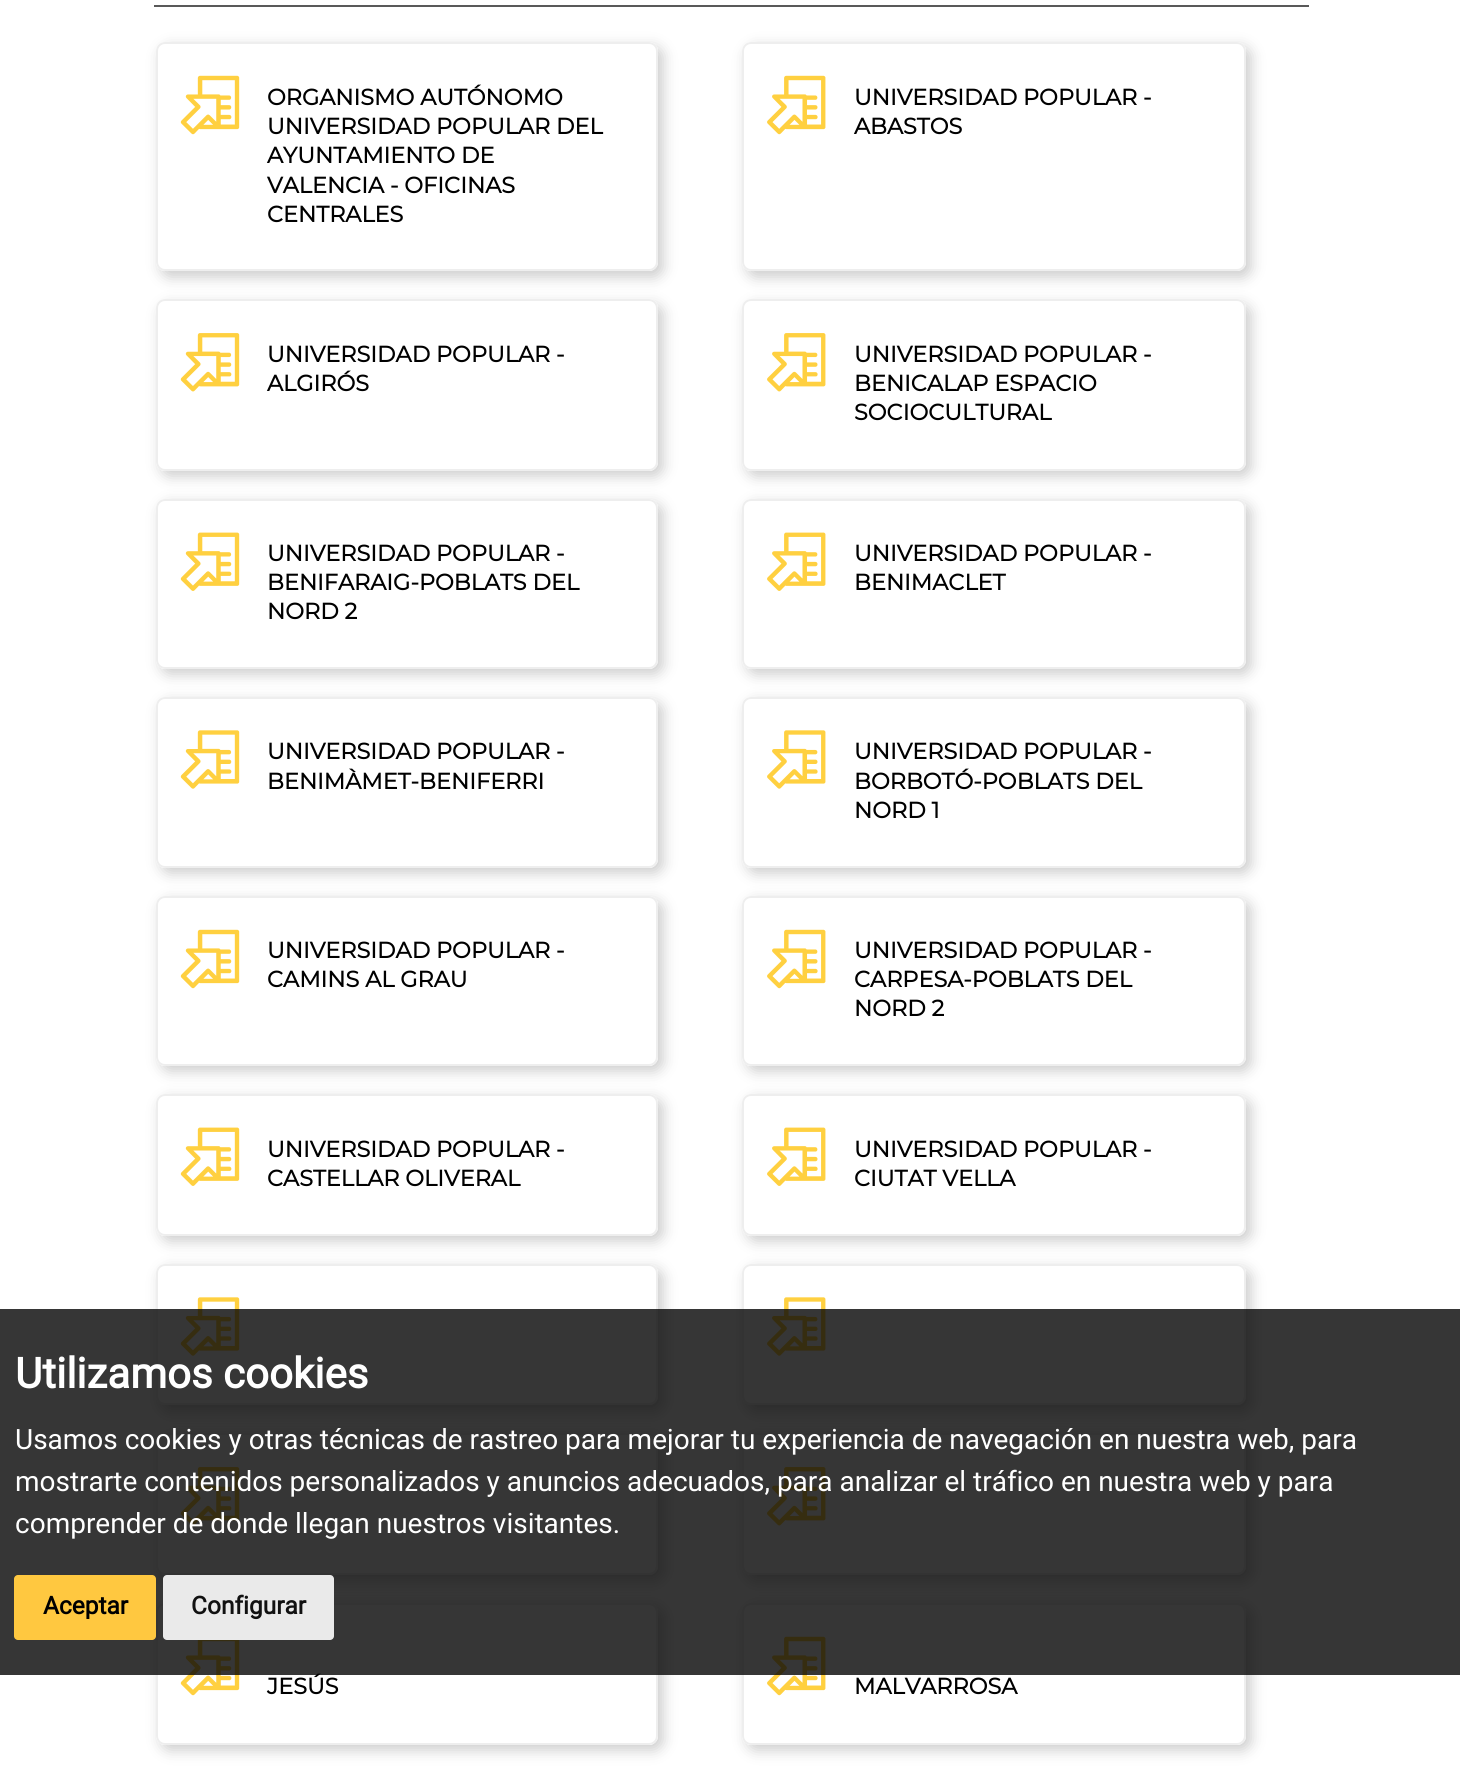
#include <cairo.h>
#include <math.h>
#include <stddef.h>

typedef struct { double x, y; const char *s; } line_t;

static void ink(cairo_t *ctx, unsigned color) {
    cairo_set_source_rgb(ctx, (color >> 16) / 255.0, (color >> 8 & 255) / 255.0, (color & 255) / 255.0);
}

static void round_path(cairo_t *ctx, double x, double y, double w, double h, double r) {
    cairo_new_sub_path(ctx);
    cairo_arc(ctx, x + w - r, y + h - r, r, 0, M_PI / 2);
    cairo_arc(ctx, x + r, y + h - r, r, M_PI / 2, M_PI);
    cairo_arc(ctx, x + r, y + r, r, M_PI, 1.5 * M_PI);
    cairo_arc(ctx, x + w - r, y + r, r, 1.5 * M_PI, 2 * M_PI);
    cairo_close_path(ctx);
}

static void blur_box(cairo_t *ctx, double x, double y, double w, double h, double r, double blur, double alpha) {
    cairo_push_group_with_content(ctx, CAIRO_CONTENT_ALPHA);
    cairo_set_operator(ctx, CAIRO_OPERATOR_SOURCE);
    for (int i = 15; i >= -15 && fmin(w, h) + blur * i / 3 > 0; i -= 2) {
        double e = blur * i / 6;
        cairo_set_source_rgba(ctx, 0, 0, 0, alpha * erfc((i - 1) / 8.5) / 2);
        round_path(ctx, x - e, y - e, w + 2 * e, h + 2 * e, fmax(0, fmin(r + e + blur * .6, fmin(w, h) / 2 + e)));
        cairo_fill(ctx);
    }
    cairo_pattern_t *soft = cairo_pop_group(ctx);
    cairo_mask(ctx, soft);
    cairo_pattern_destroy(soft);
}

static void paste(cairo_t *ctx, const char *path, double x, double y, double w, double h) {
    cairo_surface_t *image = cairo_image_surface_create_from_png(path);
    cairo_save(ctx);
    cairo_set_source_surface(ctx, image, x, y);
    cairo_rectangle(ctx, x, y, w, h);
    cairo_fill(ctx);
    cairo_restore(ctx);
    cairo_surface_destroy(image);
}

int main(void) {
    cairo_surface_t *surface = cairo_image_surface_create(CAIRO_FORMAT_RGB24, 1460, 1766);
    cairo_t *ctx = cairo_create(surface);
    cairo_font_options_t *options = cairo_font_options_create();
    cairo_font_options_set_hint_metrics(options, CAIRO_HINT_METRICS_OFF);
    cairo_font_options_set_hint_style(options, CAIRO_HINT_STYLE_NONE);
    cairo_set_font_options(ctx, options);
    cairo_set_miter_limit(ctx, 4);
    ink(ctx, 0xFFFFFF);
    cairo_paint(ctx);
    ink(ctx, 0x595959);
    cairo_rectangle(ctx, 154, 5, 1155, 2);
    cairo_fill(ctx);
    cairo_save(ctx);
    cairo_set_fill_rule(ctx, CAIRO_FILL_RULE_EVEN_ODD);
    cairo_new_path(ctx);
    cairo_move_to(ctx, 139, 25);
    cairo_line_to(ctx, 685, 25);
    cairo_line_to(ctx, 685, 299);
    cairo_line_to(ctx, 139, 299);
    cairo_close_path(ctx);
    cairo_move_to(ctx, 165, 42);
    cairo_line_to(ctx, 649, 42);
    cairo_curve_to(ctx, 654, 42, 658, 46, 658, 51);
    cairo_line_to(ctx, 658, 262);
    cairo_curve_to(ctx, 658, 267, 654, 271, 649, 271);
    cairo_line_to(ctx, 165, 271);
    cairo_curve_to(ctx, 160, 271, 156, 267, 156, 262);
    cairo_line_to(ctx, 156, 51);
    cairo_curve_to(ctx, 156, 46, 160, 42, 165, 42);
    cairo_close_path(ctx);
    cairo_clip(ctx);
    ink(ctx, 0xCCCCCC);
    blur_box(ctx, 161, 47, 502, 230, 9, 7, 1);
    cairo_restore(ctx);
    round_path(ctx, 157, 43, 500, 227, 8);
    ink(ctx, 0xEEEEEE);
    cairo_stroke(ctx);
    paste(ctx, "media/1.png", 180, 75, 60, 60);
    cairo_select_font_face(ctx, "Montserrat", CAIRO_FONT_SLANT_NORMAL, CAIRO_FONT_WEIGHT_BOLD);
    cairo_set_font_size(ctx, 22.4);
    ink(ctx, 0x000000);
    {
        static const line_t items[] = {
            {267, 105, "ORGANISMO AUTÓNOMO"},
            {267, 134, "UNIVERSIDAD POPULAR DEL"},
            {267, 163, "AYUNTAMIENTO DE"},
            {267, 193, "VALENCIA - OFICINAS"},
            {267, 222, "CENTRALES"},
        };
        for (size_t i = 0; i < sizeof items / sizeof *items; i++) {
            cairo_move_to(ctx, items[i].x, items[i].y);
            cairo_show_text(ctx, items[i].s);
        }
    }
    cairo_save(ctx);
    cairo_set_fill_rule(ctx, CAIRO_FILL_RULE_EVEN_ODD);
    cairo_new_path(ctx);
    cairo_move_to(ctx, 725, 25);
    cairo_line_to(ctx, 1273, 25);
    cairo_line_to(ctx, 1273, 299);
    cairo_line_to(ctx, 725, 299);
    cairo_close_path(ctx);
    cairo_move_to(ctx, 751, 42);
    cairo_line_to(ctx, 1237, 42);
    cairo_curve_to(ctx, 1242, 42, 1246, 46, 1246, 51);
    cairo_line_to(ctx, 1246, 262);
    cairo_curve_to(ctx, 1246, 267, 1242, 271, 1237, 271);
    cairo_line_to(ctx, 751, 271);
    cairo_curve_to(ctx, 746, 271, 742, 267, 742, 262);
    cairo_line_to(ctx, 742, 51);
    cairo_curve_to(ctx, 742, 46, 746, 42, 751, 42);
    cairo_close_path(ctx);
    cairo_clip(ctx);
    ink(ctx, 0xCCCCCC);
    blur_box(ctx, 747, 47, 504, 230, 9, 7, 1);
    cairo_restore(ctx);
    round_path(ctx, 743, 43, 502, 227, 8);
    ink(ctx, 0xEEEEEE);
    cairo_stroke(ctx);
    paste(ctx, "media/2.png", 767, 75, 59, 60);
    ink(ctx, 0x000000);
    cairo_move_to(ctx, 854, 105);
    cairo_show_text(ctx, "UNIVERSIDAD POPULAR -");
    cairo_move_to(ctx, 854, 134);
    cairo_show_text(ctx, "ABASTOS");
    cairo_save(ctx);
    cairo_set_fill_rule(ctx, CAIRO_FILL_RULE_EVEN_ODD);
    cairo_new_path(ctx);
    cairo_move_to(ctx, 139, 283);
    cairo_line_to(ctx, 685, 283);
    cairo_line_to(ctx, 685, 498);
    cairo_line_to(ctx, 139, 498);
    cairo_close_path(ctx);
    cairo_move_to(ctx, 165, 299);
    cairo_line_to(ctx, 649, 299);
    cairo_curve_to(ctx, 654, 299, 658, 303, 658, 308);
    cairo_line_to(ctx, 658, 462);
    cairo_curve_to(ctx, 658, 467, 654, 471, 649, 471);
    cairo_line_to(ctx, 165, 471);
    cairo_curve_to(ctx, 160, 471, 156, 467, 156, 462);
    cairo_line_to(ctx, 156, 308);
    cairo_curve_to(ctx, 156, 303, 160, 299, 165, 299);
    cairo_close_path(ctx);
    cairo_clip(ctx);
    ink(ctx, 0xCCCCCC);
    blur_box(ctx, 161, 305, 502, 171, 9, 7, 1);
    cairo_restore(ctx);
    round_path(ctx, 157, 300, 500, 170, 8);
    ink(ctx, 0xEEEEEE);
    cairo_stroke(ctx);
    paste(ctx, "media/3.png", 180, 333, 60, 59);
    ink(ctx, 0x000000);
    cairo_move_to(ctx, 267, 362);
    cairo_show_text(ctx, "UNIVERSIDAD POPULAR -");
    cairo_move_to(ctx, 267, 391);
    cairo_show_text(ctx, "ALGIRÓS");
    cairo_save(ctx);
    cairo_set_fill_rule(ctx, CAIRO_FILL_RULE_EVEN_ODD);
    cairo_new_path(ctx);
    cairo_move_to(ctx, 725, 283);
    cairo_line_to(ctx, 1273, 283);
    cairo_line_to(ctx, 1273, 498);
    cairo_line_to(ctx, 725, 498);
    cairo_close_path(ctx);
    cairo_move_to(ctx, 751, 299);
    cairo_line_to(ctx, 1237, 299);
    cairo_curve_to(ctx, 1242, 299, 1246, 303, 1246, 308);
    cairo_line_to(ctx, 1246, 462);
    cairo_curve_to(ctx, 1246, 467, 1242, 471, 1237, 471);
    cairo_line_to(ctx, 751, 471);
    cairo_curve_to(ctx, 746, 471, 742, 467, 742, 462);
    cairo_line_to(ctx, 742, 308);
    cairo_curve_to(ctx, 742, 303, 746, 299, 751, 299);
    cairo_close_path(ctx);
    cairo_clip(ctx);
    ink(ctx, 0xCCCCCC);
    blur_box(ctx, 747, 305, 504, 171, 9, 7, 1);
    cairo_restore(ctx);
    round_path(ctx, 743, 300, 502, 170, 8);
    ink(ctx, 0xEEEEEE);
    cairo_stroke(ctx);
    paste(ctx, "media/4.png", 767, 333, 59, 59);
    ink(ctx, 0x000000);
    {
        static const line_t items[] = {
            {854, 362, "UNIVERSIDAD POPULAR -"},
            {854, 391, "BENICALAP ESPACIO"},
            {854, 420, "SOCIOCULTURAL"},
        };
        for (size_t i = 0; i < sizeof items / sizeof *items; i++) {
            cairo_move_to(ctx, items[i].x, items[i].y);
            cairo_show_text(ctx, items[i].s);
        }
    }
    cairo_save(ctx);
    cairo_set_fill_rule(ctx, CAIRO_FILL_RULE_EVEN_ODD);
    cairo_new_path(ctx);
    cairo_move_to(ctx, 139, 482);
    cairo_line_to(ctx, 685, 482);
    cairo_line_to(ctx, 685, 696);
    cairo_line_to(ctx, 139, 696);
    cairo_close_path(ctx);
    cairo_move_to(ctx, 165, 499);
    cairo_line_to(ctx, 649, 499);
    cairo_curve_to(ctx, 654, 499, 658, 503, 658, 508);
    cairo_line_to(ctx, 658, 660);
    cairo_curve_to(ctx, 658, 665, 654, 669, 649, 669);
    cairo_line_to(ctx, 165, 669);
    cairo_curve_to(ctx, 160, 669, 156, 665, 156, 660);
    cairo_line_to(ctx, 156, 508);
    cairo_curve_to(ctx, 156, 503, 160, 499, 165, 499);
    cairo_close_path(ctx);
    cairo_clip(ctx);
    ink(ctx, 0xCCCCCC);
    blur_box(ctx, 161, 504, 502, 170, 9, 7, 1);
    cairo_restore(ctx);
    round_path(ctx, 157, 500, 500, 168, 8);
    ink(ctx, 0xEEEEEE);
    cairo_stroke(ctx);
    paste(ctx, "media/5.png", 180, 532, 60, 59);
    ink(ctx, 0x000000);
    {
        static const line_t items[] = {
            {267, 561, "UNIVERSIDAD POPULAR -"},
            {267, 590, "BENIFARAIG-POBLATS DEL"},
            {267, 619, "NORD 2"},
        };
        for (size_t i = 0; i < sizeof items / sizeof *items; i++) {
            cairo_move_to(ctx, items[i].x, items[i].y);
            cairo_show_text(ctx, items[i].s);
        }
    }
    cairo_save(ctx);
    cairo_set_fill_rule(ctx, CAIRO_FILL_RULE_EVEN_ODD);
    cairo_new_path(ctx);
    cairo_move_to(ctx, 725, 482);
    cairo_line_to(ctx, 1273, 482);
    cairo_line_to(ctx, 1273, 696);
    cairo_line_to(ctx, 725, 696);
    cairo_close_path(ctx);
    cairo_move_to(ctx, 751, 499);
    cairo_line_to(ctx, 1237, 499);
    cairo_curve_to(ctx, 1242, 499, 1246, 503, 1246, 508);
    cairo_line_to(ctx, 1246, 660);
    cairo_curve_to(ctx, 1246, 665, 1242, 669, 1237, 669);
    cairo_line_to(ctx, 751, 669);
    cairo_curve_to(ctx, 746, 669, 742, 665, 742, 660);
    cairo_line_to(ctx, 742, 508);
    cairo_curve_to(ctx, 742, 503, 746, 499, 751, 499);
    cairo_close_path(ctx);
    cairo_clip(ctx);
    ink(ctx, 0xCCCCCC);
    blur_box(ctx, 747, 504, 504, 170, 9, 7, 1);
    cairo_restore(ctx);
    round_path(ctx, 743, 500, 502, 168, 8);
    ink(ctx, 0xEEEEEE);
    cairo_stroke(ctx);
    paste(ctx, "media/6.png", 767, 532, 59, 59);
    ink(ctx, 0x000000);
    cairo_move_to(ctx, 854, 561);
    cairo_show_text(ctx, "UNIVERSIDAD POPULAR -");
    cairo_move_to(ctx, 854, 590);
    cairo_show_text(ctx, "BENIMACLET");
    cairo_save(ctx);
    cairo_set_fill_rule(ctx, CAIRO_FILL_RULE_EVEN_ODD);
    cairo_new_path(ctx);
    cairo_move_to(ctx, 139, 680);
    cairo_line_to(ctx, 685, 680);
    cairo_line_to(ctx, 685, 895);
    cairo_line_to(ctx, 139, 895);
    cairo_close_path(ctx);
    cairo_move_to(ctx, 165, 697);
    cairo_line_to(ctx, 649, 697);
    cairo_curve_to(ctx, 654, 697, 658, 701, 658, 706);
    cairo_line_to(ctx, 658, 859);
    cairo_curve_to(ctx, 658, 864, 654, 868, 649, 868);
    cairo_line_to(ctx, 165, 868);
    cairo_curve_to(ctx, 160, 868, 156, 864, 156, 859);
    cairo_line_to(ctx, 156, 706);
    cairo_curve_to(ctx, 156, 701, 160, 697, 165, 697);
    cairo_close_path(ctx);
    cairo_clip(ctx);
    ink(ctx, 0xCCCCCC);
    blur_box(ctx, 161, 702, 502, 171, 9, 7, 1);
    cairo_restore(ctx);
    round_path(ctx, 157, 698, 500, 169, 8);
    ink(ctx, 0xEEEEEE);
    cairo_stroke(ctx);
    paste(ctx, "media/7.png", 180, 730, 60, 59);
    ink(ctx, 0x000000);
    cairo_move_to(ctx, 267, 759);
    cairo_show_text(ctx, "UNIVERSIDAD POPULAR -");
    cairo_move_to(ctx, 267, 789);
    cairo_show_text(ctx, "BENIMÀMET-BENIFERRI");
    cairo_save(ctx);
    cairo_set_fill_rule(ctx, CAIRO_FILL_RULE_EVEN_ODD);
    cairo_new_path(ctx);
    cairo_move_to(ctx, 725, 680);
    cairo_line_to(ctx, 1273, 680);
    cairo_line_to(ctx, 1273, 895);
    cairo_line_to(ctx, 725, 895);
    cairo_close_path(ctx);
    cairo_move_to(ctx, 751, 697);
    cairo_line_to(ctx, 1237, 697);
    cairo_curve_to(ctx, 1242, 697, 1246, 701, 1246, 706);
    cairo_line_to(ctx, 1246, 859);
    cairo_curve_to(ctx, 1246, 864, 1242, 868, 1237, 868);
    cairo_line_to(ctx, 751, 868);
    cairo_curve_to(ctx, 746, 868, 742, 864, 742, 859);
    cairo_line_to(ctx, 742, 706);
    cairo_curve_to(ctx, 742, 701, 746, 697, 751, 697);
    cairo_close_path(ctx);
    cairo_clip(ctx);
    ink(ctx, 0xCCCCCC);
    blur_box(ctx, 747, 702, 504, 171, 9, 7, 1);
    cairo_restore(ctx);
    round_path(ctx, 743, 698, 502, 169, 8);
    ink(ctx, 0xEEEEEE);
    cairo_stroke(ctx);
    paste(ctx, "media/8.png", 767, 730, 59, 59);
    ink(ctx, 0x000000);
    {
        static const line_t items[] = {
            {854, 759, "UNIVERSIDAD POPULAR -"},
            {854, 789, "BORBOTÓ-POBLATS DEL"},
            {854, 818, "NORD 1"},
        };
        for (size_t i = 0; i < sizeof items / sizeof *items; i++) {
            cairo_move_to(ctx, items[i].x, items[i].y);
            cairo_show_text(ctx, items[i].s);
        }
    }
    cairo_save(ctx);
    cairo_set_fill_rule(ctx, CAIRO_FILL_RULE_EVEN_ODD);
    cairo_new_path(ctx);
    cairo_move_to(ctx, 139, 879);
    cairo_line_to(ctx, 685, 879);
    cairo_line_to(ctx, 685, 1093);
    cairo_line_to(ctx, 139, 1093);
    cairo_close_path(ctx);
    cairo_move_to(ctx, 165, 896);
    cairo_line_to(ctx, 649, 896);
    cairo_curve_to(ctx, 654, 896, 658, 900, 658, 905);
    cairo_line_to(ctx, 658, 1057);
    cairo_curve_to(ctx, 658, 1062, 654, 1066, 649, 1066);
    cairo_line_to(ctx, 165, 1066);
    cairo_curve_to(ctx, 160, 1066, 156, 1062, 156, 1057);
    cairo_line_to(ctx, 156, 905);
    cairo_curve_to(ctx, 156, 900, 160, 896, 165, 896);
    cairo_close_path(ctx);
    cairo_clip(ctx);
    ink(ctx, 0xCCCCCC);
    blur_box(ctx, 161, 901, 502, 170, 9, 7, 1);
    cairo_restore(ctx);
    round_path(ctx, 157, 897, 500, 168, 8);
    ink(ctx, 0xEEEEEE);
    cairo_stroke(ctx);
    paste(ctx, "media/1.png", 180, 929, 60, 60);
    ink(ctx, 0x000000);
    cairo_move_to(ctx, 267, 958);
    cairo_show_text(ctx, "UNIVERSIDAD POPULAR -");
    cairo_move_to(ctx, 267, 987);
    cairo_show_text(ctx, "CAMINS AL GRAU");
    cairo_save(ctx);
    cairo_set_fill_rule(ctx, CAIRO_FILL_RULE_EVEN_ODD);
    cairo_new_path(ctx);
    cairo_move_to(ctx, 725, 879);
    cairo_line_to(ctx, 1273, 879);
    cairo_line_to(ctx, 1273, 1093);
    cairo_line_to(ctx, 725, 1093);
    cairo_close_path(ctx);
    cairo_move_to(ctx, 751, 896);
    cairo_line_to(ctx, 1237, 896);
    cairo_curve_to(ctx, 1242, 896, 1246, 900, 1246, 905);
    cairo_line_to(ctx, 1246, 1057);
    cairo_curve_to(ctx, 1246, 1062, 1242, 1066, 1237, 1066);
    cairo_line_to(ctx, 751, 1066);
    cairo_curve_to(ctx, 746, 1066, 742, 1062, 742, 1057);
    cairo_line_to(ctx, 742, 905);
    cairo_curve_to(ctx, 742, 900, 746, 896, 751, 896);
    cairo_close_path(ctx);
    cairo_clip(ctx);
    ink(ctx, 0xCCCCCC);
    blur_box(ctx, 747, 901, 504, 170, 9, 7, 1);
    cairo_restore(ctx);
    round_path(ctx, 743, 897, 502, 168, 8);
    ink(ctx, 0xEEEEEE);
    cairo_stroke(ctx);
    paste(ctx, "media/2.png", 767, 929, 59, 60);
    ink(ctx, 0x000000);
    {
        static const line_t items[] = {
            {854, 958, "UNIVERSIDAD POPULAR -"},
            {854, 987, "CARPESA-POBLATS DEL"},
            {854, 1016, "NORD 2"},
        };
        for (size_t i = 0; i < sizeof items / sizeof *items; i++) {
            cairo_move_to(ctx, items[i].x, items[i].y);
            cairo_show_text(ctx, items[i].s);
        }
    }
    cairo_save(ctx);
    cairo_set_fill_rule(ctx, CAIRO_FILL_RULE_EVEN_ODD);
    cairo_new_path(ctx);
    cairo_move_to(ctx, 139, 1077);
    cairo_line_to(ctx, 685, 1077);
    cairo_line_to(ctx, 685, 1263);
    cairo_line_to(ctx, 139, 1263);
    cairo_close_path(ctx);
    cairo_move_to(ctx, 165, 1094);
    cairo_line_to(ctx, 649, 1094);
    cairo_curve_to(ctx, 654, 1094, 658, 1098, 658, 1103);
    cairo_line_to(ctx, 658, 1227);
    cairo_curve_to(ctx, 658, 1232, 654, 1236, 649, 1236);
    cairo_line_to(ctx, 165, 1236);
    cairo_curve_to(ctx, 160, 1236, 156, 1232, 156, 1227);
    cairo_line_to(ctx, 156, 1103);
    cairo_curve_to(ctx, 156, 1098, 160, 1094, 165, 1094);
    cairo_close_path(ctx);
    cairo_clip(ctx);
    ink(ctx, 0xCCCCCC);
    blur_box(ctx, 161, 1099, 502, 142, 9, 7, 1);
    cairo_restore(ctx);
    round_path(ctx, 157, 1095, 500, 140, 8);
    ink(ctx, 0xEEEEEE);
    cairo_stroke(ctx);
    paste(ctx, "media/5.png", 180, 1127, 60, 59);
    ink(ctx, 0x000000);
    cairo_move_to(ctx, 267, 1157);
    cairo_show_text(ctx, "UNIVERSIDAD POPULAR -");
    cairo_move_to(ctx, 267, 1186);
    cairo_show_text(ctx, "CASTELLAR OLIVERAL");
    cairo_save(ctx);
    cairo_set_fill_rule(ctx, CAIRO_FILL_RULE_EVEN_ODD);
    cairo_new_path(ctx);
    cairo_move_to(ctx, 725, 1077);
    cairo_line_to(ctx, 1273, 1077);
    cairo_line_to(ctx, 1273, 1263);
    cairo_line_to(ctx, 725, 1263);
    cairo_close_path(ctx);
    cairo_move_to(ctx, 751, 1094);
    cairo_line_to(ctx, 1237, 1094);
    cairo_curve_to(ctx, 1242, 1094, 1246, 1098, 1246, 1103);
    cairo_line_to(ctx, 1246, 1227);
    cairo_curve_to(ctx, 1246, 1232, 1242, 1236, 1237, 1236);
    cairo_line_to(ctx, 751, 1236);
    cairo_curve_to(ctx, 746, 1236, 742, 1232, 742, 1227);
    cairo_line_to(ctx, 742, 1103);
    cairo_curve_to(ctx, 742, 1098, 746, 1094, 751, 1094);
    cairo_close_path(ctx);
    cairo_clip(ctx);
    ink(ctx, 0xCCCCCC);
    blur_box(ctx, 747, 1099, 504, 142, 9, 7, 1);
    cairo_restore(ctx);
    round_path(ctx, 743, 1095, 502, 140, 8);
    ink(ctx, 0xEEEEEE);
    cairo_stroke(ctx);
    paste(ctx, "media/6.png", 767, 1127, 59, 59);
    ink(ctx, 0x000000);
    cairo_move_to(ctx, 854, 1157);
    cairo_show_text(ctx, "UNIVERSIDAD POPULAR -");
    cairo_move_to(ctx, 854, 1186);
    cairo_show_text(ctx, "CIUTAT VELLA");
    cairo_save(ctx);
    cairo_set_fill_rule(ctx, CAIRO_FILL_RULE_EVEN_ODD);
    cairo_new_path(ctx);
    cairo_move_to(ctx, 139, 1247);
    cairo_line_to(ctx, 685, 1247);
    cairo_line_to(ctx, 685, 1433);
    cairo_line_to(ctx, 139, 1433);
    cairo_close_path(ctx);
    cairo_move_to(ctx, 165, 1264);
    cairo_line_to(ctx, 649, 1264);
    cairo_curve_to(ctx, 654, 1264, 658, 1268, 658, 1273);
    cairo_line_to(ctx, 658, 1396);
    cairo_curve_to(ctx, 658, 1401, 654, 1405, 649, 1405);
    cairo_line_to(ctx, 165, 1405);
    cairo_curve_to(ctx, 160, 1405, 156, 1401, 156, 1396);
    cairo_line_to(ctx, 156, 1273);
    cairo_curve_to(ctx, 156, 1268, 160, 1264, 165, 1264);
    cairo_close_path(ctx);
    cairo_clip(ctx);
    ink(ctx, 0xCCCCCC);
    blur_box(ctx, 161, 1269, 502, 142, 9, 7, 1);
    cairo_restore(ctx);
    round_path(ctx, 157, 1265, 500, 139, 8);
    ink(ctx, 0xEEEEEE);
    cairo_stroke(ctx);
    paste(ctx, "media/7.png", 180, 1297, 60, 59);
    cairo_save(ctx);
    cairo_set_fill_rule(ctx, CAIRO_FILL_RULE_EVEN_ODD);
    cairo_new_path(ctx);
    cairo_move_to(ctx, 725, 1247);
    cairo_line_to(ctx, 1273, 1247);
    cairo_line_to(ctx, 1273, 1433);
    cairo_line_to(ctx, 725, 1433);
    cairo_close_path(ctx);
    cairo_move_to(ctx, 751, 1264);
    cairo_line_to(ctx, 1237, 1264);
    cairo_curve_to(ctx, 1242, 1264, 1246, 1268, 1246, 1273);
    cairo_line_to(ctx, 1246, 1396);
    cairo_curve_to(ctx, 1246, 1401, 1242, 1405, 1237, 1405);
    cairo_line_to(ctx, 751, 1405);
    cairo_curve_to(ctx, 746, 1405, 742, 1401, 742, 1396);
    cairo_line_to(ctx, 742, 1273);
    cairo_curve_to(ctx, 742, 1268, 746, 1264, 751, 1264);
    cairo_close_path(ctx);
    cairo_clip(ctx);
    ink(ctx, 0xCCCCCC);
    blur_box(ctx, 747, 1269, 504, 142, 9, 7, 1);
    cairo_restore(ctx);
    round_path(ctx, 743, 1265, 502, 139, 8);
    cairo_stroke(ctx);
    paste(ctx, "media/8.png", 767, 1297, 59, 59);
    cairo_save(ctx);
    cairo_set_fill_rule(ctx, CAIRO_FILL_RULE_EVEN_ODD);
    cairo_new_path(ctx);
    cairo_move_to(ctx, 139, 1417);
    cairo_line_to(ctx, 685, 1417);
    cairo_line_to(ctx, 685, 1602);
    cairo_line_to(ctx, 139, 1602);
    cairo_close_path(ctx);
    cairo_move_to(ctx, 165, 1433);
    cairo_line_to(ctx, 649, 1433);
    cairo_curve_to(ctx, 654, 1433, 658, 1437, 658, 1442);
    cairo_line_to(ctx, 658, 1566);
    cairo_curve_to(ctx, 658, 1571, 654, 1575, 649, 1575);
    cairo_line_to(ctx, 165, 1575);
    cairo_curve_to(ctx, 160, 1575, 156, 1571, 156, 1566);
    cairo_line_to(ctx, 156, 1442);
    cairo_curve_to(ctx, 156, 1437, 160, 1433, 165, 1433);
    cairo_close_path(ctx);
    cairo_clip(ctx);
    ink(ctx, 0xCCCCCC);
    blur_box(ctx, 161, 1439, 502, 141, 9, 7, 1);
    cairo_restore(ctx);
    round_path(ctx, 157, 1434, 500, 140, 8);
    cairo_stroke(ctx);
    paste(ctx, "media/3.png", 180, 1467, 60, 59);
    cairo_save(ctx);
    cairo_set_fill_rule(ctx, CAIRO_FILL_RULE_EVEN_ODD);
    cairo_new_path(ctx);
    cairo_move_to(ctx, 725, 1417);
    cairo_line_to(ctx, 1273, 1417);
    cairo_line_to(ctx, 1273, 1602);
    cairo_line_to(ctx, 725, 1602);
    cairo_close_path(ctx);
    cairo_move_to(ctx, 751, 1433);
    cairo_line_to(ctx, 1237, 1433);
    cairo_curve_to(ctx, 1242, 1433, 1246, 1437, 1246, 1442);
    cairo_line_to(ctx, 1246, 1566);
    cairo_curve_to(ctx, 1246, 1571, 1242, 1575, 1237, 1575);
    cairo_line_to(ctx, 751, 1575);
    cairo_curve_to(ctx, 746, 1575, 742, 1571, 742, 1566);
    cairo_line_to(ctx, 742, 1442);
    cairo_curve_to(ctx, 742, 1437, 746, 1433, 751, 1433);
    cairo_close_path(ctx);
    cairo_clip(ctx);
    ink(ctx, 0xCCCCCC);
    blur_box(ctx, 747, 1439, 504, 141, 9, 7, 1);
    cairo_restore(ctx);
    round_path(ctx, 743, 1434, 502, 140, 8);
    cairo_stroke(ctx);
    paste(ctx, "media/4.png", 767, 1467, 59, 59);
    cairo_save(ctx);
    cairo_set_fill_rule(ctx, CAIRO_FILL_RULE_EVEN_ODD);
    cairo_new_path(ctx);
    cairo_move_to(ctx, 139, 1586);
    cairo_line_to(ctx, 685, 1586);
    cairo_line_to(ctx, 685, 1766);
    cairo_line_to(ctx, 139, 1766);
    cairo_close_path(ctx);
    cairo_move_to(ctx, 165, 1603);
    cairo_line_to(ctx, 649, 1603);
    cairo_curve_to(ctx, 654, 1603, 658, 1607, 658, 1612);
    cairo_line_to(ctx, 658, 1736);
    cairo_curve_to(ctx, 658, 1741, 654, 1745, 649, 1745);
    cairo_line_to(ctx, 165, 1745);
    cairo_curve_to(ctx, 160, 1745, 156, 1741, 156, 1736);
    cairo_line_to(ctx, 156, 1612);
    cairo_curve_to(ctx, 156, 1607, 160, 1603, 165, 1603);
    cairo_close_path(ctx);
    cairo_clip(ctx);
    ink(ctx, 0xCCCCCC);
    blur_box(ctx, 161, 1608, 502, 142, 9, 7, 1);
    cairo_restore(ctx);
    round_path(ctx, 157, 1604, 500, 140, 8);
    cairo_stroke(ctx);
    paste(ctx, "media/9.png", 180, 1640, 60, 56);
    ink(ctx, 0x000000);
    cairo_move_to(ctx, 267, 1694);
    cairo_show_text(ctx, "JESÚS");
    cairo_save(ctx);
    cairo_set_fill_rule(ctx, CAIRO_FILL_RULE_EVEN_ODD);
    cairo_new_path(ctx);
    cairo_move_to(ctx, 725, 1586);
    cairo_line_to(ctx, 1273, 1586);
    cairo_line_to(ctx, 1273, 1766);
    cairo_line_to(ctx, 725, 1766);
    cairo_close_path(ctx);
    cairo_move_to(ctx, 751, 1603);
    cairo_line_to(ctx, 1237, 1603);
    cairo_curve_to(ctx, 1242, 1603, 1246, 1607, 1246, 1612);
    cairo_line_to(ctx, 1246, 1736);
    cairo_curve_to(ctx, 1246, 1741, 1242, 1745, 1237, 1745);
    cairo_line_to(ctx, 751, 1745);
    cairo_curve_to(ctx, 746, 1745, 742, 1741, 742, 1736);
    cairo_line_to(ctx, 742, 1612);
    cairo_curve_to(ctx, 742, 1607, 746, 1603, 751, 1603);
    cairo_close_path(ctx);
    cairo_clip(ctx);
    ink(ctx, 0xCCCCCC);
    blur_box(ctx, 747, 1608, 504, 142, 9, 7, 1);
    cairo_restore(ctx);
    round_path(ctx, 743, 1604, 502, 140, 8);
    ink(ctx, 0xEEEEEE);
    cairo_stroke(ctx);
    paste(ctx, "media/2.png", 767, 1636, 59, 60);
    ink(ctx, 0x000000);
    cairo_move_to(ctx, 854, 1694);
    cairo_show_text(ctx, "MALVARROSA");
    cairo_set_source_rgba(ctx, 0.016, 0.016, 0.016, 0.8);
    cairo_rectangle(ctx, 0, 1309, 1460, 366);
    cairo_fill(ctx);
    cairo_select_font_face(ctx, "Roboto", CAIRO_FONT_SLANT_NORMAL, CAIRO_FONT_WEIGHT_BOLD);
    cairo_set_font_size(ctx, 42);
    ink(ctx, 0xFFFFFF);
    cairo_move_to(ctx, 15, 1388);
    cairo_show_text(ctx, "Utilizamos cookies");
    cairo_select_font_face(ctx, "Roboto", CAIRO_FONT_SLANT_NORMAL, CAIRO_FONT_WEIGHT_NORMAL);
    cairo_set_font_size(ctx, 28);
    {
        static const line_t items[] = {
            {15, 1449, "Usamos cookies y otras técnicas de rastreo para mejorar tu experiencia de navegación en nuestra web, para"},
            {15, 1491, "mostrarte contenidos personalizados y anuncios adecuados, para analizar el tráfico en nuestra web y para"},
            {15, 1533, "comprender de donde llegan nuestros visitantes."},
        };
        for (size_t i = 0; i < sizeof items / sizeof *items; i++) {
            cairo_move_to(ctx, items[i].x, items[i].y);
            cairo_show_text(ctx, items[i].s);
        }
    }
    ink(ctx, 0xFFC840);
    round_path(ctx, 14, 1575, 142, 65, 4);
    cairo_fill(ctx);
    cairo_select_font_face(ctx, "Roboto", CAIRO_FONT_SLANT_NORMAL, CAIRO_FONT_WEIGHT_BOLD);
    cairo_set_font_size(ctx, 24.5);
    ink(ctx, 0x000000);
    cairo_move_to(ctx, 43, 1614);
    cairo_show_text(ctx, "Aceptar");
    ink(ctx, 0xEAEAEA);
    round_path(ctx, 163, 1575, 171, 65, 4);
    cairo_fill(ctx);
    ink(ctx, 0x111111);
    cairo_move_to(ctx, 191, 1614);
    cairo_show_text(ctx, "Configurar");
    cairo_surface_write_to_png(surface, "image.png");
    cairo_font_options_destroy(options);
    cairo_destroy(ctx);
    cairo_surface_destroy(surface);
    return 0;
}
